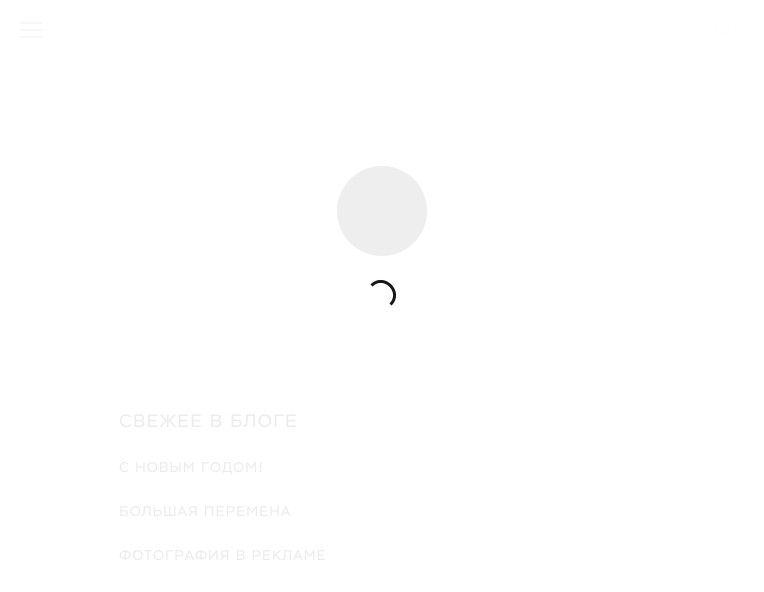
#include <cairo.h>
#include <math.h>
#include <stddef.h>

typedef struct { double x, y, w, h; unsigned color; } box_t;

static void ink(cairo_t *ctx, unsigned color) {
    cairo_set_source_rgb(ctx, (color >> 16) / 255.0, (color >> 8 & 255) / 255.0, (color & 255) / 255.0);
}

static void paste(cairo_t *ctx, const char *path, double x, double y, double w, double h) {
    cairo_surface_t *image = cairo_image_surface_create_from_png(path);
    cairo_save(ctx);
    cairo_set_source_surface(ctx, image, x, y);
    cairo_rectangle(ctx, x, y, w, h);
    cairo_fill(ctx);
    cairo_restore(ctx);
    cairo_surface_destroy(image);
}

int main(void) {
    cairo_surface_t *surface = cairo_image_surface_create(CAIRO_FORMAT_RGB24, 764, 592);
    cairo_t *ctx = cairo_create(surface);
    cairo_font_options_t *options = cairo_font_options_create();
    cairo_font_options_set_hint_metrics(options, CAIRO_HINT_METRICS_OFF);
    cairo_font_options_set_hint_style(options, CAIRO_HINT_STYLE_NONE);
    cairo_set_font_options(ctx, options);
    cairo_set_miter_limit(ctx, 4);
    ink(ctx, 0xFFFFFF);
    cairo_paint(ctx);
    {
        static const box_t items[] = {
            {20, 29, 22, 2, 0xF7F7F7},
            {20, 22, 22, 2, 0xF7F7F7},
            {20, 36, 22, 2, 0xF7F7F7},
        };
        for (size_t i = 0; i < sizeof items / sizeof *items; i++) {
            ink(ctx, items[i].color);
            cairo_rectangle(ctx, items[i].x, items[i].y, items[i].w, items[i].h);
            cairo_fill(ctx);
        }
    }
    paste(ctx, "media/1.png", 715, 20, 18, 19);
    cairo_set_source_rgba(ctx, 0.922, 0.922, 0.922, 0.6);
    cairo_arc(ctx, 382, 211, 45, 0, 2 * M_PI);
    cairo_fill(ctx);
    cairo_arc(ctx, 382, 211, 45, 0, 2 * M_PI);
    cairo_fill(ctx);
    paste(ctx, "media/2.png", 119, 414, 177, 14);
    paste(ctx, "media/3.png", 119, 462, 143, 12);
    paste(ctx, "media/4.png", 120, 506, 171, 11);
    paste(ctx, "media/5.png", 119, 550, 207, 11);
    cairo_new_path(ctx);
    cairo_move_to(ctx, 371.5, 285.5);
    cairo_curve_to(ctx, 384, 273, 403, 292, 390.5, 304.5);
    ink(ctx, 0x161616);
    cairo_set_line_width(ctx, 3);
    cairo_stroke(ctx);
    cairo_surface_write_to_png(surface, "image.png");
    cairo_font_options_destroy(options);
    cairo_destroy(ctx);
    cairo_surface_destroy(surface);
    return 0;
}
